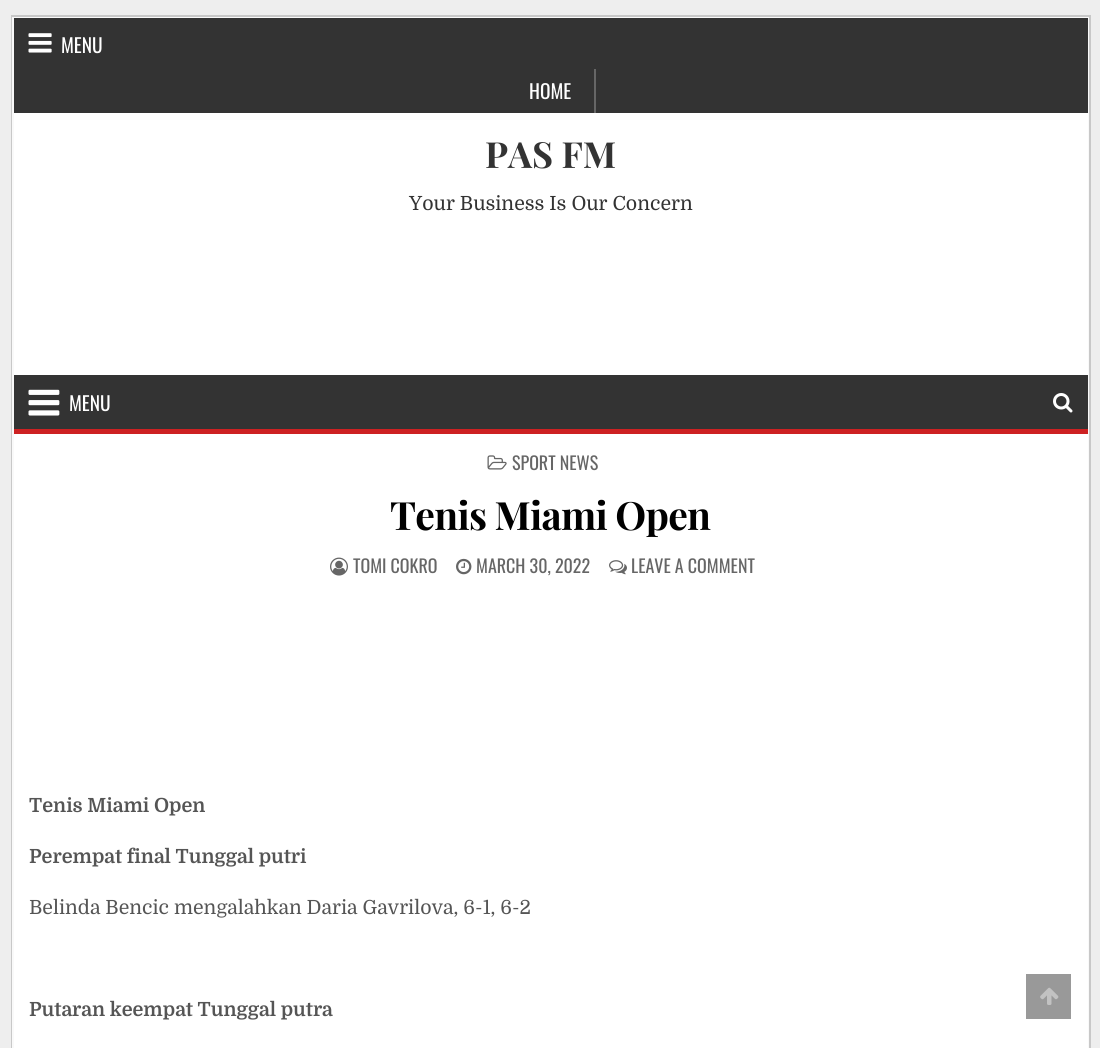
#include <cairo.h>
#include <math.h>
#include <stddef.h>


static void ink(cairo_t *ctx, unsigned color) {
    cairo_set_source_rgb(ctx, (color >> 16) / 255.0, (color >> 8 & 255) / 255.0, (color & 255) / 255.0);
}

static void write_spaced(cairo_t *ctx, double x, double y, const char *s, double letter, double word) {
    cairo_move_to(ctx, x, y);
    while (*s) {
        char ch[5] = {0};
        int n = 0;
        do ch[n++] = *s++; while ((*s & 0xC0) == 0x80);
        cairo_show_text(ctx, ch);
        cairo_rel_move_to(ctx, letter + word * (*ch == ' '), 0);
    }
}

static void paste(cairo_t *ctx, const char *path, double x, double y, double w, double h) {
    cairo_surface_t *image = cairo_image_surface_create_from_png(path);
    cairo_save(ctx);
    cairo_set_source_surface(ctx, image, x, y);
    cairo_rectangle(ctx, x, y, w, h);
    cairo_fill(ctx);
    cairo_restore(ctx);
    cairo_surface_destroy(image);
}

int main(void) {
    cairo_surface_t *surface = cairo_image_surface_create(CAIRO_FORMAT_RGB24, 1100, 1048);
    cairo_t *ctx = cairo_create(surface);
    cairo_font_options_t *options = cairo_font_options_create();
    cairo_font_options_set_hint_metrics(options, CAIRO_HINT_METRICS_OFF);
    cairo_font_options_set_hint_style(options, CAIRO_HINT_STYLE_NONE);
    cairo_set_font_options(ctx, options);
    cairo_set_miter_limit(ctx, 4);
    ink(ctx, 0xEEEEEE);
    cairo_paint(ctx);
    cairo_rectangle(ctx, 12, 16, 1078, 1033);
    ink(ctx, 0xC8C8C8);
    cairo_stroke(ctx);
    cairo_rectangle(ctx, 13, 18, 1075, 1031);
    ink(ctx, 0xF9F9F9);
    cairo_stroke(ctx);
    ink(ctx, 0x333333);
    cairo_rectangle(ctx, 14, 18, 1074, 95);
    cairo_fill(ctx);
    paste(ctx, "media/1.png", 28, 33, 24, 20);
    cairo_select_font_face(ctx, "Oswald", CAIRO_FONT_SLANT_NORMAL, CAIRO_FONT_WEIGHT_NORMAL);
    cairo_set_font_size(ctx, 19.5);
    ink(ctx, 0xFFFFFF);
    cairo_move_to(ctx, 61, 53);
    cairo_show_text(ctx, "MENU");
    ink(ctx, 0x666666);
    cairo_rectangle(ctx, 594, 69, 2, 44);
    cairo_fill(ctx);
    ink(ctx, 0xFFFFFF);
    cairo_move_to(ctx, 529, 99);
    cairo_show_text(ctx, "HOME");
    cairo_rectangle(ctx, 14, 113, 1074, 262);
    cairo_fill(ctx);
    cairo_select_font_face(ctx, "Playfair Display", CAIRO_FONT_SLANT_NORMAL, CAIRO_FONT_WEIGHT_BOLD);
    cairo_set_font_size(ctx, 36);
    ink(ctx, 0x333333);
    cairo_move_to(ctx, 485, 168);
    cairo_show_text(ctx, "PAS FM");
    cairo_select_font_face(ctx, "Domine", CAIRO_FONT_SLANT_NORMAL, CAIRO_FONT_WEIGHT_NORMAL);
    cairo_set_font_size(ctx, 19.5);
    cairo_move_to(ctx, 409, 210);
    cairo_show_text(ctx, "Your Business Is Our Concern");
    cairo_rectangle(ctx, 14, 375, 1074, 54);
    cairo_fill(ctx);
    ink(ctx, 0xCD2122);
    cairo_rectangle(ctx, 14, 429, 1074, 5);
    cairo_fill(ctx);
    paste(ctx, "media/2.png", 28, 389, 32, 27);
    cairo_select_font_face(ctx, "Oswald", CAIRO_FONT_SLANT_NORMAL, CAIRO_FONT_WEIGHT_NORMAL);
    ink(ctx, 0xFFFFFF);
    cairo_move_to(ctx, 69, 411);
    cairo_show_text(ctx, "MENU");
    paste(ctx, "media/3.png", 1053, 393, 20, 20);
    cairo_rectangle(ctx, 14, 434, 1074, 614);
    cairo_fill(ctx);
    paste(ctx, "media/4.png", 487, 455, 20, 15);
    cairo_set_font_size(ctx, 18);
    ink(ctx, 0x666666);
    cairo_move_to(ctx, 512, 470);
    cairo_show_text(ctx, "SPORT NEWS");
    cairo_select_font_face(ctx, "Playfair Display", CAIRO_FONT_SLANT_NORMAL, CAIRO_FONT_WEIGHT_BOLD);
    cairo_set_font_size(ctx, 39);
    ink(ctx, 0x000000);
    write_spaced(ctx, 390, 530, "Tenis Miami Open", -0.75, 0);
    paste(ctx, "media/5.png", 330, 557, 18, 19);
    cairo_select_font_face(ctx, "Oswald", CAIRO_FONT_SLANT_NORMAL, CAIRO_FONT_WEIGHT_NORMAL);
    cairo_set_font_size(ctx, 18);
    ink(ctx, 0x666666);
    cairo_move_to(ctx, 353, 573);
    cairo_show_text(ctx, "TOMI COKRO");
    paste(ctx, "media/6.png", 456, 558, 16, 17);
    cairo_move_to(ctx, 476, 573);
    cairo_show_text(ctx, "MARCH 30, 2022");
    paste(ctx, "media/7.png", 609, 560, 18, 15);
    cairo_move_to(ctx, 631, 573);
    cairo_show_text(ctx, "LEAVE A COMMENT");
    cairo_select_font_face(ctx, "Domine", CAIRO_FONT_SLANT_NORMAL, CAIRO_FONT_WEIGHT_BOLD);
    cairo_set_font_size(ctx, 19.5);
    ink(ctx, 0x555555);
    cairo_move_to(ctx, 29, 812);
    cairo_show_text(ctx, "Tenis Miami Open");
    cairo_move_to(ctx, 29, 863);
    cairo_show_text(ctx, "Perempat final Tunggal putri");
    cairo_select_font_face(ctx, "Domine", CAIRO_FONT_SLANT_NORMAL, CAIRO_FONT_WEIGHT_NORMAL);
    cairo_move_to(ctx, 29, 914);
    cairo_show_text(ctx, "Belinda Bencic mengalahkan Daria Gavrilova, 6-1, 6-2");
    cairo_select_font_face(ctx, "Domine", CAIRO_FONT_SLANT_NORMAL, CAIRO_FONT_WEIGHT_BOLD);
    cairo_move_to(ctx, 29, 1016);
    cairo_show_text(ctx, "Putaran keempat Tunggal putra");
    ink(ctx, 0x999999);
    cairo_rectangle(ctx, 1026, 974, 45, 45);
    cairo_fill(ctx);
    paste(ctx, "media/8.png", 1040, 987, 19, 18);
    cairo_surface_write_to_png(surface, "image.png");
    cairo_font_options_destroy(options);
    cairo_destroy(ctx);
    cairo_surface_destroy(surface);
    return 0;
}
